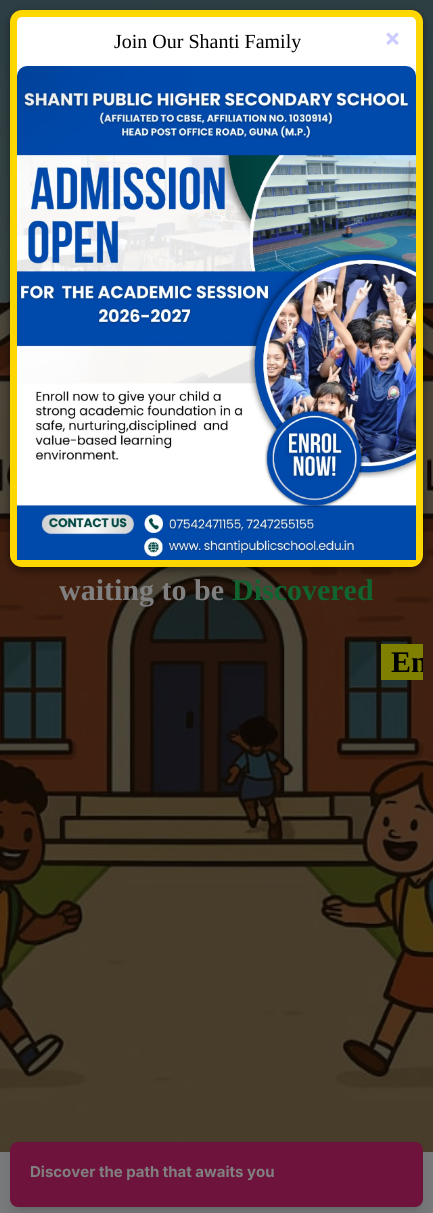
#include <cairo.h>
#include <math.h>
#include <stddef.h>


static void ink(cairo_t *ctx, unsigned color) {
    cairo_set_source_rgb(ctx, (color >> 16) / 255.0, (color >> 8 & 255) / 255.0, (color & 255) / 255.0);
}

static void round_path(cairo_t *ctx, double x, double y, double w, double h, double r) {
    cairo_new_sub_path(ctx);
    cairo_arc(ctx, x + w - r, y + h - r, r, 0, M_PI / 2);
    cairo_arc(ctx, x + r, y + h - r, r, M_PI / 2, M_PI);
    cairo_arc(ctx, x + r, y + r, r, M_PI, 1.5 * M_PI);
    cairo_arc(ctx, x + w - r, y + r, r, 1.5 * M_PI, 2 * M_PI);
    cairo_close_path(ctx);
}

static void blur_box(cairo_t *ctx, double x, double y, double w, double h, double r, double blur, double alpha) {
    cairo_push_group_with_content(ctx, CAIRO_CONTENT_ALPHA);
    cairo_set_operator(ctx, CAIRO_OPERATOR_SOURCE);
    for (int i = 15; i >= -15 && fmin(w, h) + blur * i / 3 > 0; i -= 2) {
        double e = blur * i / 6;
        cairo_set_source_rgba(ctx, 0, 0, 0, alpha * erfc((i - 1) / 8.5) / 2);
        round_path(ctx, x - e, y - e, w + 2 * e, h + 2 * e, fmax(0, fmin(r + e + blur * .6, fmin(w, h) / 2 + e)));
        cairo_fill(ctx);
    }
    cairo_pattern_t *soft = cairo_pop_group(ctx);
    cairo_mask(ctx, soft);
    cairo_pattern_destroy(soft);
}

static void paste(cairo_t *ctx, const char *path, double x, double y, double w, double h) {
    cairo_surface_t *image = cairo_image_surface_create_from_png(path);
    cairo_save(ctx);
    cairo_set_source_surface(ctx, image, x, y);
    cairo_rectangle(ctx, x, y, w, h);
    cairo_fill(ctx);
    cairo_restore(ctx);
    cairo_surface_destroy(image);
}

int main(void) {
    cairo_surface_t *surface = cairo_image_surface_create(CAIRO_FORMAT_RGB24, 433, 1213);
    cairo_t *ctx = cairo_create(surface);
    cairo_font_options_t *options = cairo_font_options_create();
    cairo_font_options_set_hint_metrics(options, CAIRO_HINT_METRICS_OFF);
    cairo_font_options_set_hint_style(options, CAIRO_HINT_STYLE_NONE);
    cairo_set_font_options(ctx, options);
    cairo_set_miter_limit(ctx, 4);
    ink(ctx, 0x78797B);
    cairo_paint(ctx);
    paste(ctx, "media/2.png", 0, 0, 433, 1152);
    ink(ctx, 0x000000);
    blur_box(ctx, 10, 13, 413, 557, 12, 4.5, 0.5);
    ink(ctx, 0xFFFFFF);
    round_path(ctx, 13.5, 13.5, 406, 550, 8.5);
    cairo_fill_preserve(ctx);
    ink(ctx, 0xFFD700);
    cairo_set_line_width(ctx, 7);
    cairo_stroke(ctx);
    cairo_select_font_face(ctx, "Liberation Serif", CAIRO_FONT_SLANT_NORMAL, CAIRO_FONT_WEIGHT_NORMAL);
    cairo_set_font_size(ctx, 20);
    ink(ctx, 0x000000);
    cairo_move_to(ctx, 114, 48);
    cairo_show_text(ctx, "Join Our Shanti Family");
    cairo_select_font_face(ctx, "Inter", CAIRO_FONT_SLANT_NORMAL, CAIRO_FONT_WEIGHT_BOLD);
    cairo_set_font_size(ctx, 25);
    ink(ctx, 0xCCCCFF);
    cairo_move_to(ctx, 384, 46);
    cairo_show_text(ctx, "×");
    paste(ctx, "media/1.png", 17, 66, 399, 494);
    cairo_select_font_face(ctx, "Liberation Serif", CAIRO_FONT_SLANT_NORMAL, CAIRO_FONT_WEIGHT_BOLD);
    cairo_set_font_size(ctx, 30);
    ink(ctx, 0x808080);
    cairo_move_to(ctx, 59, 600);
    cairo_show_text(ctx, "waiting to be");
    ink(ctx, 0x11632F);
    cairo_move_to(ctx, 232, 600);
    cairo_show_text(ctx, "Discovered");
    ink(ctx, 0x808000);
    cairo_rectangle(ctx, 381, 644, 42, 36);
    cairo_fill(ctx);
    cairo_save(ctx);
    cairo_rectangle(ctx, 10, 644, 413, 36);
    cairo_clip(ctx);
    ink(ctx, 0x000000);
    cairo_move_to(ctx, 391, 672);
    cairo_show_text(ctx, "En");
    cairo_restore(ctx);
    ink(ctx, 0x000000);
    blur_box(ctx, 14, 1150, 405, 57, 4, 3, 0.1);
    blur_box(ctx, 13, 1155, 407, 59, 5, 7.5, 0.1);
    ink(ctx, 0x6E143C);
    round_path(ctx, 10, 1142, 413, 65, 8);
    cairo_fill(ctx);
    cairo_select_font_face(ctx, "Inter", CAIRO_FONT_SLANT_NORMAL, CAIRO_FONT_WEIGHT_BOLD);
    cairo_set_font_size(ctx, 15);
    ink(ctx, 0x808080);
    cairo_move_to(ctx, 30, 1177);
    cairo_show_text(ctx, "Discover the path that awaits you");
    cairo_surface_write_to_png(surface, "image.png");
    cairo_font_options_destroy(options);
    cairo_destroy(ctx);
    cairo_surface_destroy(surface);
    return 0;
}
